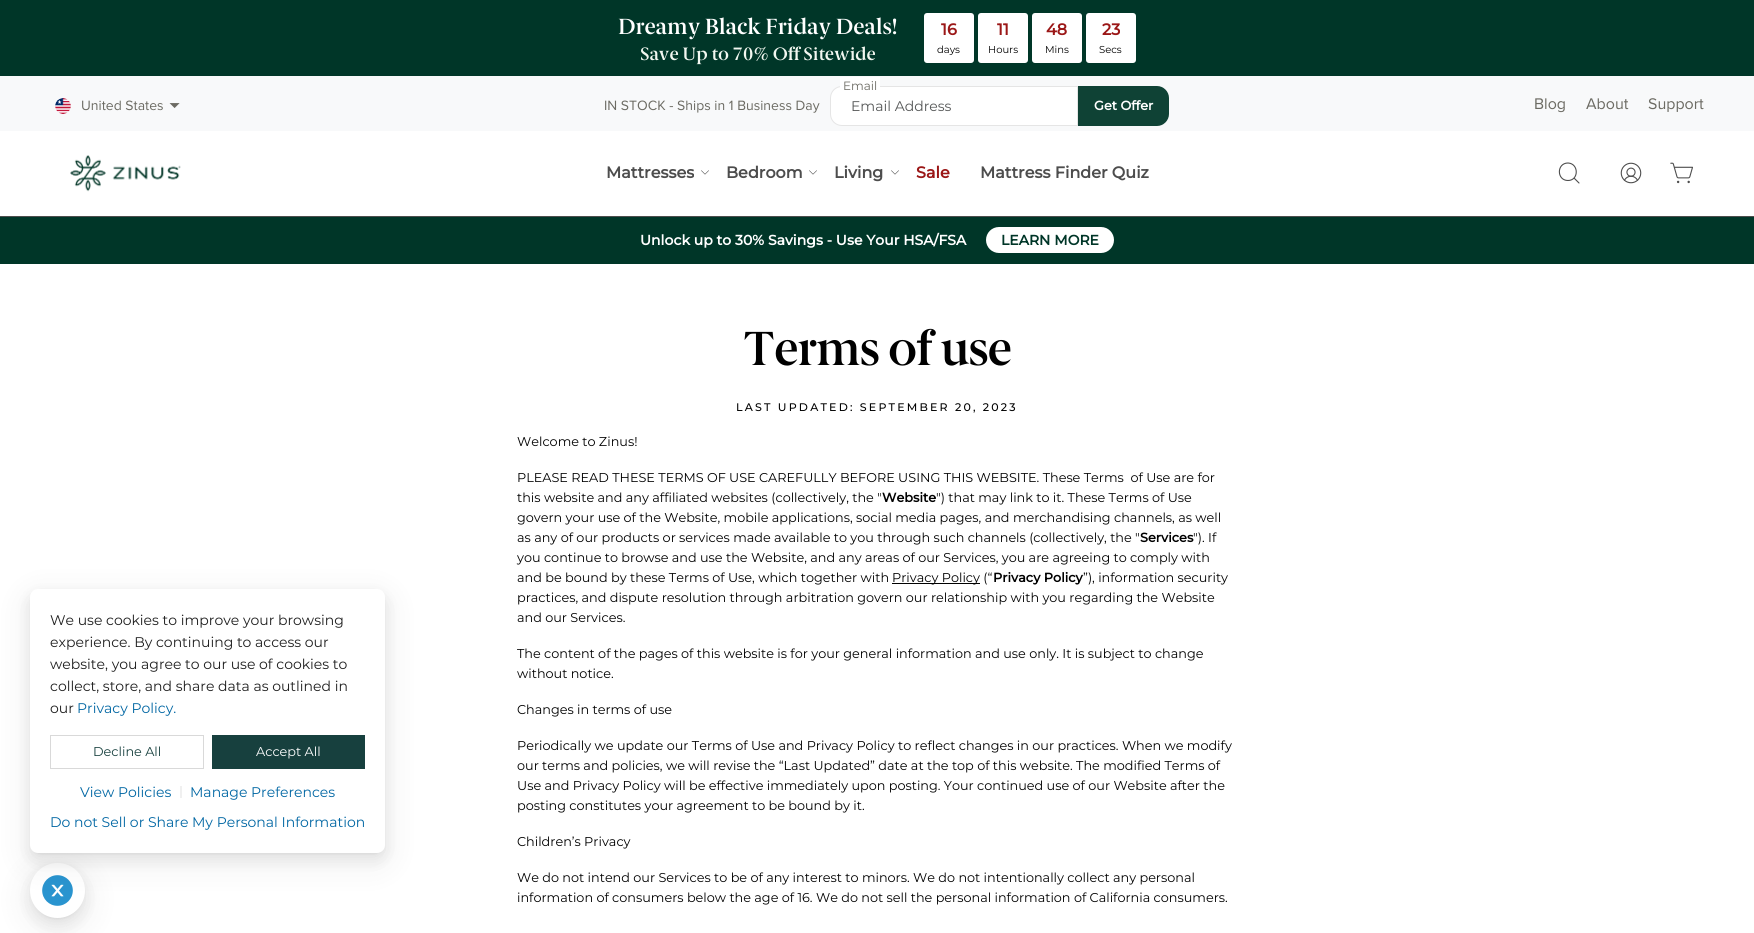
#include <cairo.h>
#include <math.h>
#include <stddef.h>

typedef struct { double x, y; const char *s; } line_t;

static void ink(cairo_t *ctx, unsigned color) {
    cairo_set_source_rgb(ctx, (color >> 16) / 255.0, (color >> 8 & 255) / 255.0, (color & 255) / 255.0);
}

static void write_spaced(cairo_t *ctx, double x, double y, const char *s, double letter, double word) {
    cairo_move_to(ctx, x, y);
    while (*s) {
        char ch[5] = {0};
        int n = 0;
        do ch[n++] = *s++; while ((*s & 0xC0) == 0x80);
        cairo_show_text(ctx, ch);
        cairo_rel_move_to(ctx, letter + word * (*ch == ' '), 0);
    }
}

static void round_path(cairo_t *ctx, double x, double y, double w, double h, double r) {
    cairo_new_sub_path(ctx);
    cairo_arc(ctx, x + w - r, y + h - r, r, 0, M_PI / 2);
    cairo_arc(ctx, x + r, y + h - r, r, M_PI / 2, M_PI);
    cairo_arc(ctx, x + r, y + r, r, M_PI, 1.5 * M_PI);
    cairo_arc(ctx, x + w - r, y + r, r, 1.5 * M_PI, 2 * M_PI);
    cairo_close_path(ctx);
}

static void blur_box(cairo_t *ctx, double x, double y, double w, double h, double r, double blur, double alpha) {
    cairo_push_group_with_content(ctx, CAIRO_CONTENT_ALPHA);
    cairo_set_operator(ctx, CAIRO_OPERATOR_SOURCE);
    for (int i = 15; i >= -15 && fmin(w, h) + blur * i / 3 > 0; i -= 2) {
        double e = blur * i / 6;
        cairo_set_source_rgba(ctx, 0, 0, 0, alpha * erfc((i - 1) / 8.5) / 2);
        round_path(ctx, x - e, y - e, w + 2 * e, h + 2 * e, fmax(0, fmin(r + e + blur * .6, fmin(w, h) / 2 + e)));
        cairo_fill(ctx);
    }
    cairo_pattern_t *soft = cairo_pop_group(ctx);
    cairo_mask(ctx, soft);
    cairo_pattern_destroy(soft);
}

static void paste(cairo_t *ctx, const char *path, double x, double y, double w, double h) {
    cairo_surface_t *image = cairo_image_surface_create_from_png(path);
    cairo_save(ctx);
    cairo_set_source_surface(ctx, image, x, y);
    cairo_rectangle(ctx, x, y, w, h);
    cairo_fill(ctx);
    cairo_restore(ctx);
    cairo_surface_destroy(image);
}

int main(void) {
    cairo_surface_t *surface = cairo_image_surface_create(CAIRO_FORMAT_RGB24, 1754, 933);
    cairo_t *ctx = cairo_create(surface);
    cairo_font_options_t *options = cairo_font_options_create();
    cairo_font_options_set_hint_metrics(options, CAIRO_HINT_METRICS_OFF);
    cairo_font_options_set_hint_style(options, CAIRO_HINT_STYLE_NONE);
    cairo_set_font_options(ctx, options);
    cairo_set_miter_limit(ctx, 4);
    ink(ctx, 0xFFFFFF);
    cairo_paint(ctx);
    ink(ctx, 0x003628);
    cairo_rectangle(ctx, 0, 0, 1754, 76);
    cairo_fill(ctx);
    cairo_select_font_face(ctx, "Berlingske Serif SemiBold", CAIRO_FONT_SLANT_NORMAL, CAIRO_FONT_WEIGHT_NORMAL);
    cairo_set_font_size(ctx, 22);
    ink(ctx, 0xFFFFFF);
    cairo_move_to(ctx, 618, 34);
    cairo_show_text(ctx, "Dreamy Black Friday Deals!");
    cairo_set_font_size(ctx, 18);
    ink(ctx, 0xF2F7F0);
    cairo_move_to(ctx, 640, 60);
    cairo_show_text(ctx, "Save Up to 70% Off Sitewide");
    ink(ctx, 0xFFFFFF);
    round_path(ctx, 924, 13, 50, 50, 3);
    cairo_fill(ctx);
    cairo_select_font_face(ctx, "Montserrat", CAIRO_FONT_SLANT_NORMAL, CAIRO_FONT_WEIGHT_BOLD);
    cairo_set_font_size(ctx, 16);
    ink(ctx, 0x9B1717);
    cairo_move_to(ctx, 941, 35);
    cairo_show_text(ctx, "16");
    cairo_select_font_face(ctx, "Montserrat", CAIRO_FONT_SLANT_NORMAL, CAIRO_FONT_WEIGHT_NORMAL);
    cairo_set_font_size(ctx, 10);
    ink(ctx, 0x000000);
    cairo_move_to(ctx, 937, 53);
    cairo_show_text(ctx, "days");
    ink(ctx, 0xFFFFFF);
    round_path(ctx, 978, 13, 50, 50, 3);
    cairo_fill(ctx);
    cairo_select_font_face(ctx, "Montserrat", CAIRO_FONT_SLANT_NORMAL, CAIRO_FONT_WEIGHT_BOLD);
    cairo_set_font_size(ctx, 16);
    ink(ctx, 0x9B1717);
    cairo_move_to(ctx, 997, 35);
    cairo_show_text(ctx, "11");
    cairo_select_font_face(ctx, "Montserrat", CAIRO_FONT_SLANT_NORMAL, CAIRO_FONT_WEIGHT_NORMAL);
    cairo_set_font_size(ctx, 10);
    ink(ctx, 0x000000);
    cairo_move_to(ctx, 988, 53);
    cairo_show_text(ctx, "Hours");
    ink(ctx, 0xFFFFFF);
    round_path(ctx, 1032, 13, 50, 50, 3);
    cairo_fill(ctx);
    cairo_select_font_face(ctx, "Montserrat", CAIRO_FONT_SLANT_NORMAL, CAIRO_FONT_WEIGHT_BOLD);
    cairo_set_font_size(ctx, 16);
    ink(ctx, 0x9B1717);
    cairo_move_to(ctx, 1046, 35);
    cairo_show_text(ctx, "48");
    cairo_select_font_face(ctx, "Montserrat", CAIRO_FONT_SLANT_NORMAL, CAIRO_FONT_WEIGHT_NORMAL);
    cairo_set_font_size(ctx, 10);
    ink(ctx, 0x000000);
    cairo_move_to(ctx, 1045, 53);
    cairo_show_text(ctx, "Mins");
    ink(ctx, 0xFFFFFF);
    round_path(ctx, 1086, 13, 50, 50, 3);
    cairo_fill(ctx);
    cairo_select_font_face(ctx, "Montserrat", CAIRO_FONT_SLANT_NORMAL, CAIRO_FONT_WEIGHT_BOLD);
    cairo_set_font_size(ctx, 16);
    ink(ctx, 0x9B1717);
    cairo_move_to(ctx, 1102, 35);
    cairo_show_text(ctx, "23");
    cairo_select_font_face(ctx, "Montserrat", CAIRO_FONT_SLANT_NORMAL, CAIRO_FONT_WEIGHT_NORMAL);
    cairo_set_font_size(ctx, 10);
    ink(ctx, 0x000000);
    cairo_move_to(ctx, 1099, 53);
    cairo_show_text(ctx, "Secs");
    ink(ctx, 0x4D4D4D);
    cairo_rectangle(ctx, 0, 216, 1754, 1);
    cairo_fill(ctx);
    ink(ctx, 0xF8F9FA);
    cairo_rectangle(ctx, 0, 76, 1754, 55);
    cairo_fill(ctx);
    paste(ctx, "media/1.png", 55, 98, 16, 16);
    cairo_select_font_face(ctx, "Proxima Nova", CAIRO_FONT_SLANT_NORMAL, CAIRO_FONT_WEIGHT_NORMAL);
    cairo_set_font_size(ctx, 14);
    ink(ctx, 0x6C6B63);
    cairo_move_to(ctx, 81, 110);
    cairo_show_text(ctx, "United States");
    cairo_select_font_face(ctx, "FreeSans", CAIRO_FONT_SLANT_NORMAL, CAIRO_FONT_WEIGHT_NORMAL);
    cairo_move_to(ctx, 169, 110);
    cairo_show_text(ctx, "⏷");
    cairo_select_font_face(ctx, "Proxima Nova", CAIRO_FONT_SLANT_NORMAL, CAIRO_FONT_WEIGHT_NORMAL);
    cairo_move_to(ctx, 604, 110);
    cairo_show_text(ctx, "IN STOCK - Ships in 1 Business Day");
    ink(ctx, 0xFFFFFF);
    cairo_new_path(ctx);
    cairo_move_to(ctx, 842, 86.5);
    cairo_line_to(ctx, 1077.5, 86.5);
    cairo_line_to(ctx, 1077.5, 125.5);
    cairo_line_to(ctx, 842, 125.5);
    cairo_curve_to(ctx, 835.5, 125.5, 830.5, 120.5, 830.5, 114);
    cairo_line_to(ctx, 830.5, 98);
    cairo_curve_to(ctx, 830.5, 91.5, 835.5, 86.5, 842, 86.5);
    cairo_close_path(ctx);
    cairo_fill_preserve(ctx);
    ink(ctx, 0xE5E5E5);
    cairo_set_line_width(ctx, 1);
    cairo_stroke(ctx);
    ink(ctx, 0xFFFFFF);
    cairo_rectangle(ctx, 840, 77, 40, 11);
    cairo_fill(ctx);
    cairo_select_font_face(ctx, "Montserrat", CAIRO_FONT_SLANT_NORMAL, CAIRO_FONT_WEIGHT_NORMAL);
    cairo_set_font_size(ctx, 12);
    ink(ctx, 0x6C6B63);
    cairo_move_to(ctx, 843, 90);
    cairo_show_text(ctx, "Email");
    cairo_set_font_size(ctx, 14);
    ink(ctx, 0x555757);
    cairo_move_to(ctx, 851, 111);
    cairo_show_text(ctx, "Email Address");
    ink(ctx, 0x0F4235);
    cairo_new_path(ctx);
    cairo_move_to(ctx, 1078, 86);
    cairo_line_to(ctx, 1157, 86);
    cairo_curve_to(ctx, 1163.5, 86, 1169, 91.5, 1169, 98);
    cairo_line_to(ctx, 1169, 114);
    cairo_curve_to(ctx, 1169, 120.5, 1163.5, 126, 1157, 126);
    cairo_line_to(ctx, 1078, 126);
    cairo_close_path(ctx);
    cairo_fill(ctx);
    cairo_select_font_face(ctx, "Montserrat", CAIRO_FONT_SLANT_NORMAL, CAIRO_FONT_WEIGHT_BOLD);
    cairo_set_font_size(ctx, 12.8);
    ink(ctx, 0xFFFFFF);
    cairo_move_to(ctx, 1094, 110);
    cairo_show_text(ctx, "Get Offer");
    cairo_select_font_face(ctx, "Proxima Nova", CAIRO_FONT_SLANT_NORMAL, CAIRO_FONT_WEIGHT_NORMAL);
    cairo_set_font_size(ctx, 16);
    ink(ctx, 0x6C6B63);
    {
        static const line_t items[] = {
            {1534, 109, "Blog"},
            {1586, 109, "About"},
            {1648, 109, "Support"},
        };
        for (size_t i = 0; i < sizeof items / sizeof *items; i++) {
            cairo_move_to(ctx, items[i].x, items[i].y);
            cairo_show_text(ctx, items[i].s);
        }
    }
    paste(ctx, "media/2.png", 70, 155, 111, 37);
    cairo_select_font_face(ctx, "Montserrat", CAIRO_FONT_SLANT_NORMAL, CAIRO_FONT_WEIGHT_BOLD);
    ink(ctx, 0x4D4D4D);
    cairo_move_to(ctx, 606, 178);
    cairo_show_text(ctx, "Mattresses");
    paste(ctx, "media/3.png", 701, 170, 8, 5);
    cairo_move_to(ctx, 726, 178);
    cairo_show_text(ctx, "Bedroom");
    paste(ctx, "media/3.png", 809, 170, 8, 5);
    cairo_move_to(ctx, 834, 178);
    cairo_show_text(ctx, "Living");
    paste(ctx, "media/3.png", 891, 170, 8, 5);
    ink(ctx, 0x9B1717);
    cairo_move_to(ctx, 916, 178);
    cairo_show_text(ctx, "Sale");
    ink(ctx, 0x4D4D4D);
    cairo_move_to(ctx, 980, 178);
    cairo_show_text(ctx, "Mattress Finder Quiz");
    cairo_new_path(ctx);
    cairo_move_to(ctx, 1568, 180.5);
    cairo_curve_to(ctx, 1579, 180.5, 1579, 163.5, 1568, 163);
    cairo_curve_to(ctx, 1556.5, 163, 1556.5, 180.5, 1568, 180.5);
    cairo_close_path(ctx);
    cairo_move_to(ctx, 1574, 178);
    cairo_line_to(ctx, 1579, 183);
    cairo_set_line_width(ctx, 1.1);
    cairo_set_line_cap(ctx, CAIRO_LINE_CAP_ROUND);
    cairo_set_line_join(ctx, CAIRO_LINE_JOIN_ROUND);
    cairo_stroke(ctx);
    paste(ctx, "media/4.png", 1620, 162, 22, 22);
    paste(ctx, "media/5.png", 1670, 162, 23, 22);
    ink(ctx, 0x003628);
    cairo_rectangle(ctx, 0, 217, 1754, 47);
    cairo_fill(ctx);
    cairo_set_font_size(ctx, 14);
    ink(ctx, 0xFFFFFF);
    cairo_move_to(ctx, 640, 245);
    cairo_show_text(ctx, "Unlock up to 30% Savings - Use Your HSA/FSA");
    round_path(ctx, 986, 227, 128, 26, 13);
    cairo_fill(ctx);
    ink(ctx, 0x003628);
    cairo_move_to(ctx, 1001, 245);
    cairo_show_text(ctx, "LEARN MORE");
    ink(ctx, 0x000000);
    blur_box(ctx, 22, 864, 71, 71, 35.5, 14, 0.05);
    blur_box(ctx, 34, 870, 47, 47, 23.5, 3, 0.12);
    blur_box(ctx, 30, 869, 55, 55, 27.5, 8, 0.08);
    ink(ctx, 0xFFFFFF);
    cairo_arc(ctx, 57.5, 890.5, 27.5, 0, 2 * M_PI);
    cairo_fill(ctx);
    paste(ctx, "media/6.png", 42, 875, 31, 31);
    ink(ctx, 0x000000);
    blur_box(ctx, 22, 590, 371, 280, 16, 14, 0.05);
    blur_box(ctx, 34, 596, 347, 256, 4, 3, 0.12);
    blur_box(ctx, 30, 595, 355, 264, 8, 8, 0.08);
    ink(ctx, 0xFFFFFF);
    round_path(ctx, 30, 589, 355, 264, 8);
    cairo_fill(ctx);
    cairo_select_font_face(ctx, "Montserrat", CAIRO_FONT_SLANT_NORMAL, CAIRO_FONT_WEIGHT_NORMAL);
    ink(ctx, 0x1F1F1F);
    {
        static const line_t items[] = {
            {50, 625, "We use cookies to improve your browsing"},
            {50, 647, "experience. By continuing to access our"},
            {50, 669, "website, you agree to our use of cookies to"},
            {50, 691, "collect, store, and share data as outlined in"},
            {50, 713, "our"},
        };
        for (size_t i = 0; i < sizeof items / sizeof *items; i++) {
            cairo_move_to(ctx, items[i].x, items[i].y);
            cairo_show_text(ctx, items[i].s);
        }
    }
    ink(ctx, 0x0066A3);
    cairo_move_to(ctx, 77, 713);
    cairo_show_text(ctx, "Privacy Policy.");
    cairo_rectangle(ctx, 50.5, 735.5, 153, 33);
    ink(ctx, 0xD9D9D9);
    cairo_set_line_width(ctx, 1);
    cairo_set_line_cap(ctx, CAIRO_LINE_CAP_BUTT);
    cairo_set_line_join(ctx, CAIRO_LINE_JOIN_MITER);
    cairo_stroke(ctx);
    cairo_set_font_size(ctx, 12.8);
    ink(ctx, 0x17403E);
    cairo_move_to(ctx, 93, 756);
    cairo_show_text(ctx, "Decline All");
    cairo_rectangle(ctx, 212, 735, 153, 34);
    cairo_fill(ctx);
    ink(ctx, 0xFFFFFF);
    cairo_move_to(ctx, 256, 756);
    cairo_show_text(ctx, "Accept All");
    cairo_set_font_size(ctx, 14);
    ink(ctx, 0x0066A3);
    cairo_move_to(ctx, 80, 797);
    cairo_show_text(ctx, "View Policies");
    ink(ctx, 0xF0F0F0);
    cairo_rectangle(ctx, 180, 786, 2, 12);
    cairo_fill(ctx);
    ink(ctx, 0x0066A3);
    cairo_move_to(ctx, 190, 797);
    cairo_show_text(ctx, "Manage Preferences");
    cairo_move_to(ctx, 50, 827);
    cairo_show_text(ctx, "Do not Sell or Share My Personal Information");
    cairo_select_font_face(ctx, "Berlingske Serif SemiBold", CAIRO_FONT_SLANT_NORMAL, CAIRO_FONT_WEIGHT_NORMAL);
    cairo_set_font_size(ctx, 48);
    ink(ctx, 0x000000);
    write_spaced(ctx, 743, 365, "Terms of use", -1, 0);
    cairo_select_font_face(ctx, "Montserrat Medium", CAIRO_FONT_SLANT_NORMAL, CAIRO_FONT_WEIGHT_NORMAL);
    cairo_set_font_size(ctx, 11);
    write_spaced(ctx, 736, 411, "LAST UPDATED: SEPTEMBER 20, 2023", 2.2, 0);
    cairo_select_font_face(ctx, "Montserrat", CAIRO_FONT_SLANT_NORMAL, CAIRO_FONT_WEIGHT_NORMAL);
    cairo_set_font_size(ctx, 12.8);
    {
        static const line_t items[] = {
            {517, 446, "Welcome to Zinus!"},
            {517, 482, "PLEASE READ THESE TERMS OF USE CAREFULLY BEFORE USING THIS WEBSITE. These Terms  of Use are for"},
            {517, 502, "this website and any affiliated websites (collectively, the \""},
        };
        for (size_t i = 0; i < sizeof items / sizeof *items; i++) {
            cairo_move_to(ctx, items[i].x, items[i].y);
            cairo_show_text(ctx, items[i].s);
        }
    }
    cairo_select_font_face(ctx, "Montserrat", CAIRO_FONT_SLANT_NORMAL, CAIRO_FONT_WEIGHT_BOLD);
    cairo_move_to(ctx, 882, 502);
    cairo_show_text(ctx, "Website");
    cairo_select_font_face(ctx, "Montserrat", CAIRO_FONT_SLANT_NORMAL, CAIRO_FONT_WEIGHT_NORMAL);
    {
        static const line_t items[] = {
            {936, 502, "\") that may link to it. These Terms of Use"},
            {517, 522, "govern your use of the Website, mobile applications, social media pages, and merchandising channels, as well"},
            {517, 542, "as any of our products or services made available to you through such channels (collectively, the \""},
        };
        for (size_t i = 0; i < sizeof items / sizeof *items; i++) {
            cairo_move_to(ctx, items[i].x, items[i].y);
            cairo_show_text(ctx, items[i].s);
        }
    }
    cairo_select_font_face(ctx, "Montserrat", CAIRO_FONT_SLANT_NORMAL, CAIRO_FONT_WEIGHT_BOLD);
    cairo_move_to(ctx, 1140, 542);
    cairo_show_text(ctx, "Services");
    cairo_select_font_face(ctx, "Montserrat", CAIRO_FONT_SLANT_NORMAL, CAIRO_FONT_WEIGHT_NORMAL);
    {
        static const line_t items[] = {
            {1193, 542, "\"). If"},
            {517, 562, "you continue to browse and use the Website, and any areas of our Services, you are agreeing to comply with"},
            {517, 582, "and be bound by these Terms of Use, which together with"},
        };
        for (size_t i = 0; i < sizeof items / sizeof *items; i++) {
            cairo_move_to(ctx, items[i].x, items[i].y);
            cairo_show_text(ctx, items[i].s);
        }
    }
    cairo_rectangle(ctx, 892, 583, 88, 1);
    cairo_fill(ctx);
    cairo_move_to(ctx, 892, 582);
    cairo_show_text(ctx, "Privacy Policy (“");
    cairo_select_font_face(ctx, "Montserrat", CAIRO_FONT_SLANT_NORMAL, CAIRO_FONT_WEIGHT_BOLD);
    cairo_move_to(ctx, 993, 582);
    cairo_show_text(ctx, "Privacy Policy");
    cairo_select_font_face(ctx, "Montserrat", CAIRO_FONT_SLANT_NORMAL, CAIRO_FONT_WEIGHT_NORMAL);
    {
        static const line_t items[] = {
            {1083, 582, "”), information security"},
            {517, 602, "practices, and dispute resolution through arbitration govern our relationship with you regarding the Website"},
            {517, 622, "and our Services."},
            {517, 658, "The content of the pages of this website is for your general information and use only. It is subject to change"},
            {517, 678, "without notice."},
            {517, 714, "Changes in terms of use"},
            {517, 750, "Periodically we update our Terms of Use and Privacy Policy to reflect changes in our practices. When we modify"},
            {517, 770, "our terms and policies, we will revise the “Last Updated” date at the top of this website. The modified Terms of"},
            {517, 790, "Use and Privacy Policy will be effective immediately upon posting. Your continued use of our Website after the"},
            {517, 810, "posting constitutes your agreement to be bound by it."},
            {517, 846, "Children’s Privacy"},
            {517, 882, "We do not intend our Services to be of any interest to minors. We do not intentionally collect any personal"},
            {517, 902, "information of consumers below the age of 16. We do not sell the personal information of California consumers."},
        };
        for (size_t i = 0; i < sizeof items / sizeof *items; i++) {
            cairo_move_to(ctx, items[i].x, items[i].y);
            cairo_show_text(ctx, items[i].s);
        }
    }
    cairo_surface_write_to_png(surface, "image.png");
    cairo_font_options_destroy(options);
    cairo_destroy(ctx);
    cairo_surface_destroy(surface);
    return 0;
}
